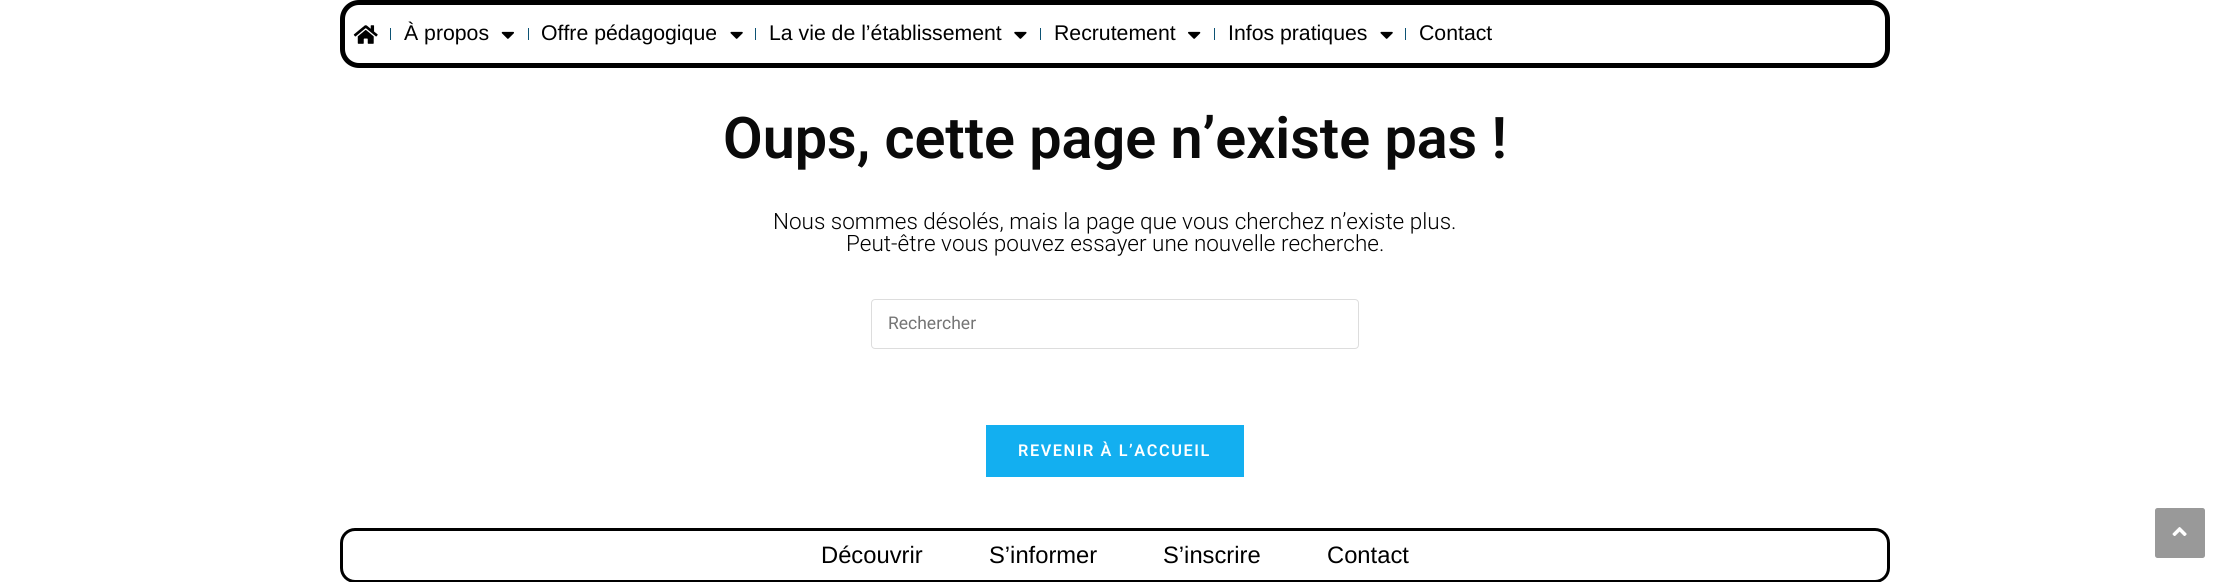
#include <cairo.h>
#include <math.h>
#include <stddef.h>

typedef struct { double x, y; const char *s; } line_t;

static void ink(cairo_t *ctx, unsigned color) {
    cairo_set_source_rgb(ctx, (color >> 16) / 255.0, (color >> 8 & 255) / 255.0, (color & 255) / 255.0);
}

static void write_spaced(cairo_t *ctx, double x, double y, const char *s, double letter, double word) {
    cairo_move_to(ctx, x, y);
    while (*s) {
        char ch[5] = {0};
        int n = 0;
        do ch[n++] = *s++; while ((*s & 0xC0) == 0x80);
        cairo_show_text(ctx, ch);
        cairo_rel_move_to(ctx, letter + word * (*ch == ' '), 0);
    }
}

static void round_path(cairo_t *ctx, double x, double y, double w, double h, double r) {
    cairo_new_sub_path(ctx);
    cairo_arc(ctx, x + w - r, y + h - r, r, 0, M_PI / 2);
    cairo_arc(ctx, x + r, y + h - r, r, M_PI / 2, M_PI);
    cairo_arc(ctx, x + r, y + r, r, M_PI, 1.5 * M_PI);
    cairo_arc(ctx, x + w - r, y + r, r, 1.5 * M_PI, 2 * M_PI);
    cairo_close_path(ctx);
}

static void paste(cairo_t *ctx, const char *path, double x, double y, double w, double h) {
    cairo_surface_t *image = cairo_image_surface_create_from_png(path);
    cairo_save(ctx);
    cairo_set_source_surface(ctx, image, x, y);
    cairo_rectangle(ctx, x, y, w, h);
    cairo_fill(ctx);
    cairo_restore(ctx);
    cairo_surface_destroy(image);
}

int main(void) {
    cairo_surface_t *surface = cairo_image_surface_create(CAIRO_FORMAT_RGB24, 2230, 582);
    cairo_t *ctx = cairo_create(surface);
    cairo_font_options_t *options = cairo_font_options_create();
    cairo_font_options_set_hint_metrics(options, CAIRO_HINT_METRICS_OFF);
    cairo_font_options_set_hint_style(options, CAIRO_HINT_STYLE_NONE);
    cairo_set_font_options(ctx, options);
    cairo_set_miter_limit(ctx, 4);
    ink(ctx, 0xFFFFFF);
    cairo_paint(ctx);
    round_path(ctx, 342.5, 2.5, 1545, 63, 16.5);
    ink(ctx, 0x000000);
    cairo_set_line_width(ctx, 5);
    cairo_stroke(ctx);
    paste(ctx, "media/1.png", 353, 25, 25, 19);
    ink(ctx, 0x0C5274);
    cairo_rectangle(ctx, 390, 28, 1, 12);
    cairo_fill(ctx);
    cairo_select_font_face(ctx, "Liberation Sans", CAIRO_FONT_SLANT_NORMAL, CAIRO_FONT_WEIGHT_NORMAL);
    cairo_set_font_size(ctx, 21.25);
    ink(ctx, 0x000000);
    cairo_move_to(ctx, 404, 40);
    cairo_show_text(ctx, "À propos");
    paste(ctx, "media/2.png", 501, 31, 13, 8);
    ink(ctx, 0x0C5274);
    cairo_rectangle(ctx, 528, 28, 1, 12);
    cairo_fill(ctx);
    ink(ctx, 0x000000);
    cairo_move_to(ctx, 541, 40);
    cairo_show_text(ctx, "Offre pédagogique");
    paste(ctx, "media/3.png", 730, 31, 13, 8);
    ink(ctx, 0x0C5274);
    cairo_rectangle(ctx, 755, 28, 1, 12);
    cairo_fill(ctx);
    ink(ctx, 0x000000);
    cairo_move_to(ctx, 769, 40);
    cairo_show_text(ctx, "La vie de l’établissement");
    paste(ctx, "media/4.png", 1014, 31, 13, 8);
    ink(ctx, 0x0C5274);
    cairo_rectangle(ctx, 1040, 28, 1, 12);
    cairo_fill(ctx);
    ink(ctx, 0x000000);
    cairo_move_to(ctx, 1054, 40);
    cairo_show_text(ctx, "Recrutement");
    paste(ctx, "media/5.png", 1188, 31, 13, 8);
    ink(ctx, 0x0C5274);
    cairo_rectangle(ctx, 1214, 28, 1, 12);
    cairo_fill(ctx);
    ink(ctx, 0x000000);
    cairo_move_to(ctx, 1228, 40);
    cairo_show_text(ctx, "Infos pratiques");
    paste(ctx, "media/3.png", 1380, 31, 13, 8);
    ink(ctx, 0x0C5274);
    cairo_rectangle(ctx, 1405, 28, 1, 12);
    cairo_fill(ctx);
    ink(ctx, 0x000000);
    cairo_move_to(ctx, 1419, 40);
    cairo_show_text(ctx, "Contact");
    cairo_select_font_face(ctx, "Roboto SemiBold", CAIRO_FONT_SLANT_NORMAL, CAIRO_FONT_WEIGHT_NORMAL);
    cairo_set_font_size(ctx, 57.5);
    ink(ctx, 0x0A0A0A);
    cairo_move_to(ctx, 723, 158);
    cairo_show_text(ctx, "Oups, cette page n’existe pas !");
    cairo_select_font_face(ctx, "Roboto Light", CAIRO_FONT_SLANT_NORMAL, CAIRO_FONT_WEIGHT_NORMAL);
    cairo_set_font_size(ctx, 22.5);
    ink(ctx, 0x000000);
    cairo_move_to(ctx, 773, 229);
    cairo_show_text(ctx, "Nous sommes désolés, mais la page que vous cherchez n’existe plus.");
    cairo_move_to(ctx, 846, 251);
    cairo_show_text(ctx, "Peut-être vous pouvez essayer une nouvelle recherche.");
    round_path(ctx, 871.5, 299.5, 487, 49, 3.5);
    ink(ctx, 0xDDDDDD);
    cairo_set_line_width(ctx, 1);
    cairo_stroke(ctx);
    cairo_select_font_face(ctx, "Roboto", CAIRO_FONT_SLANT_NORMAL, CAIRO_FONT_WEIGHT_NORMAL);
    cairo_set_font_size(ctx, 17.5);
    ink(ctx, 0x757575);
    cairo_move_to(ctx, 888, 329);
    cairo_show_text(ctx, "Rechercher");
    ink(ctx, 0x13AFF0);
    cairo_rectangle(ctx, 986, 425, 258, 52);
    cairo_fill(ctx);
    cairo_select_font_face(ctx, "Roboto SemiBold", CAIRO_FONT_SLANT_NORMAL, CAIRO_FONT_WEIGHT_NORMAL);
    cairo_set_font_size(ctx, 16.25);
    ink(ctx, 0xFFFFFF);
    write_spaced(ctx, 1018, 456, "REVENIR À L’ACCUEIL", 1.6, 0);
    round_path(ctx, 341.5, 529.5, 1547, 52, 13.5);
    ink(ctx, 0x000000);
    cairo_set_line_width(ctx, 3);
    cairo_stroke(ctx);
    cairo_select_font_face(ctx, "Liberation Sans", CAIRO_FONT_SLANT_NORMAL, CAIRO_FONT_WEIGHT_NORMAL);
    cairo_set_font_size(ctx, 23.75);
    {
        static const line_t items[] = {
            {821, 563, "Découvrir"},
            {989, 563, "S’informer"},
            {1163, 563, "S’inscrire"},
            {1327, 563, "Contact"},
        };
        for (size_t i = 0; i < sizeof items / sizeof *items; i++) {
            cairo_move_to(ctx, items[i].x, items[i].y);
            cairo_show_text(ctx, items[i].s);
        }
    }
    ink(ctx, 0x999999);
    round_path(ctx, 2155, 508, 50, 50, 2.5);
    cairo_fill(ctx);
    paste(ctx, "media/6.png", 2172, 527, 15, 9);
    cairo_surface_write_to_png(surface, "image.png");
    cairo_font_options_destroy(options);
    cairo_destroy(ctx);
    cairo_surface_destroy(surface);
    return 0;
}
